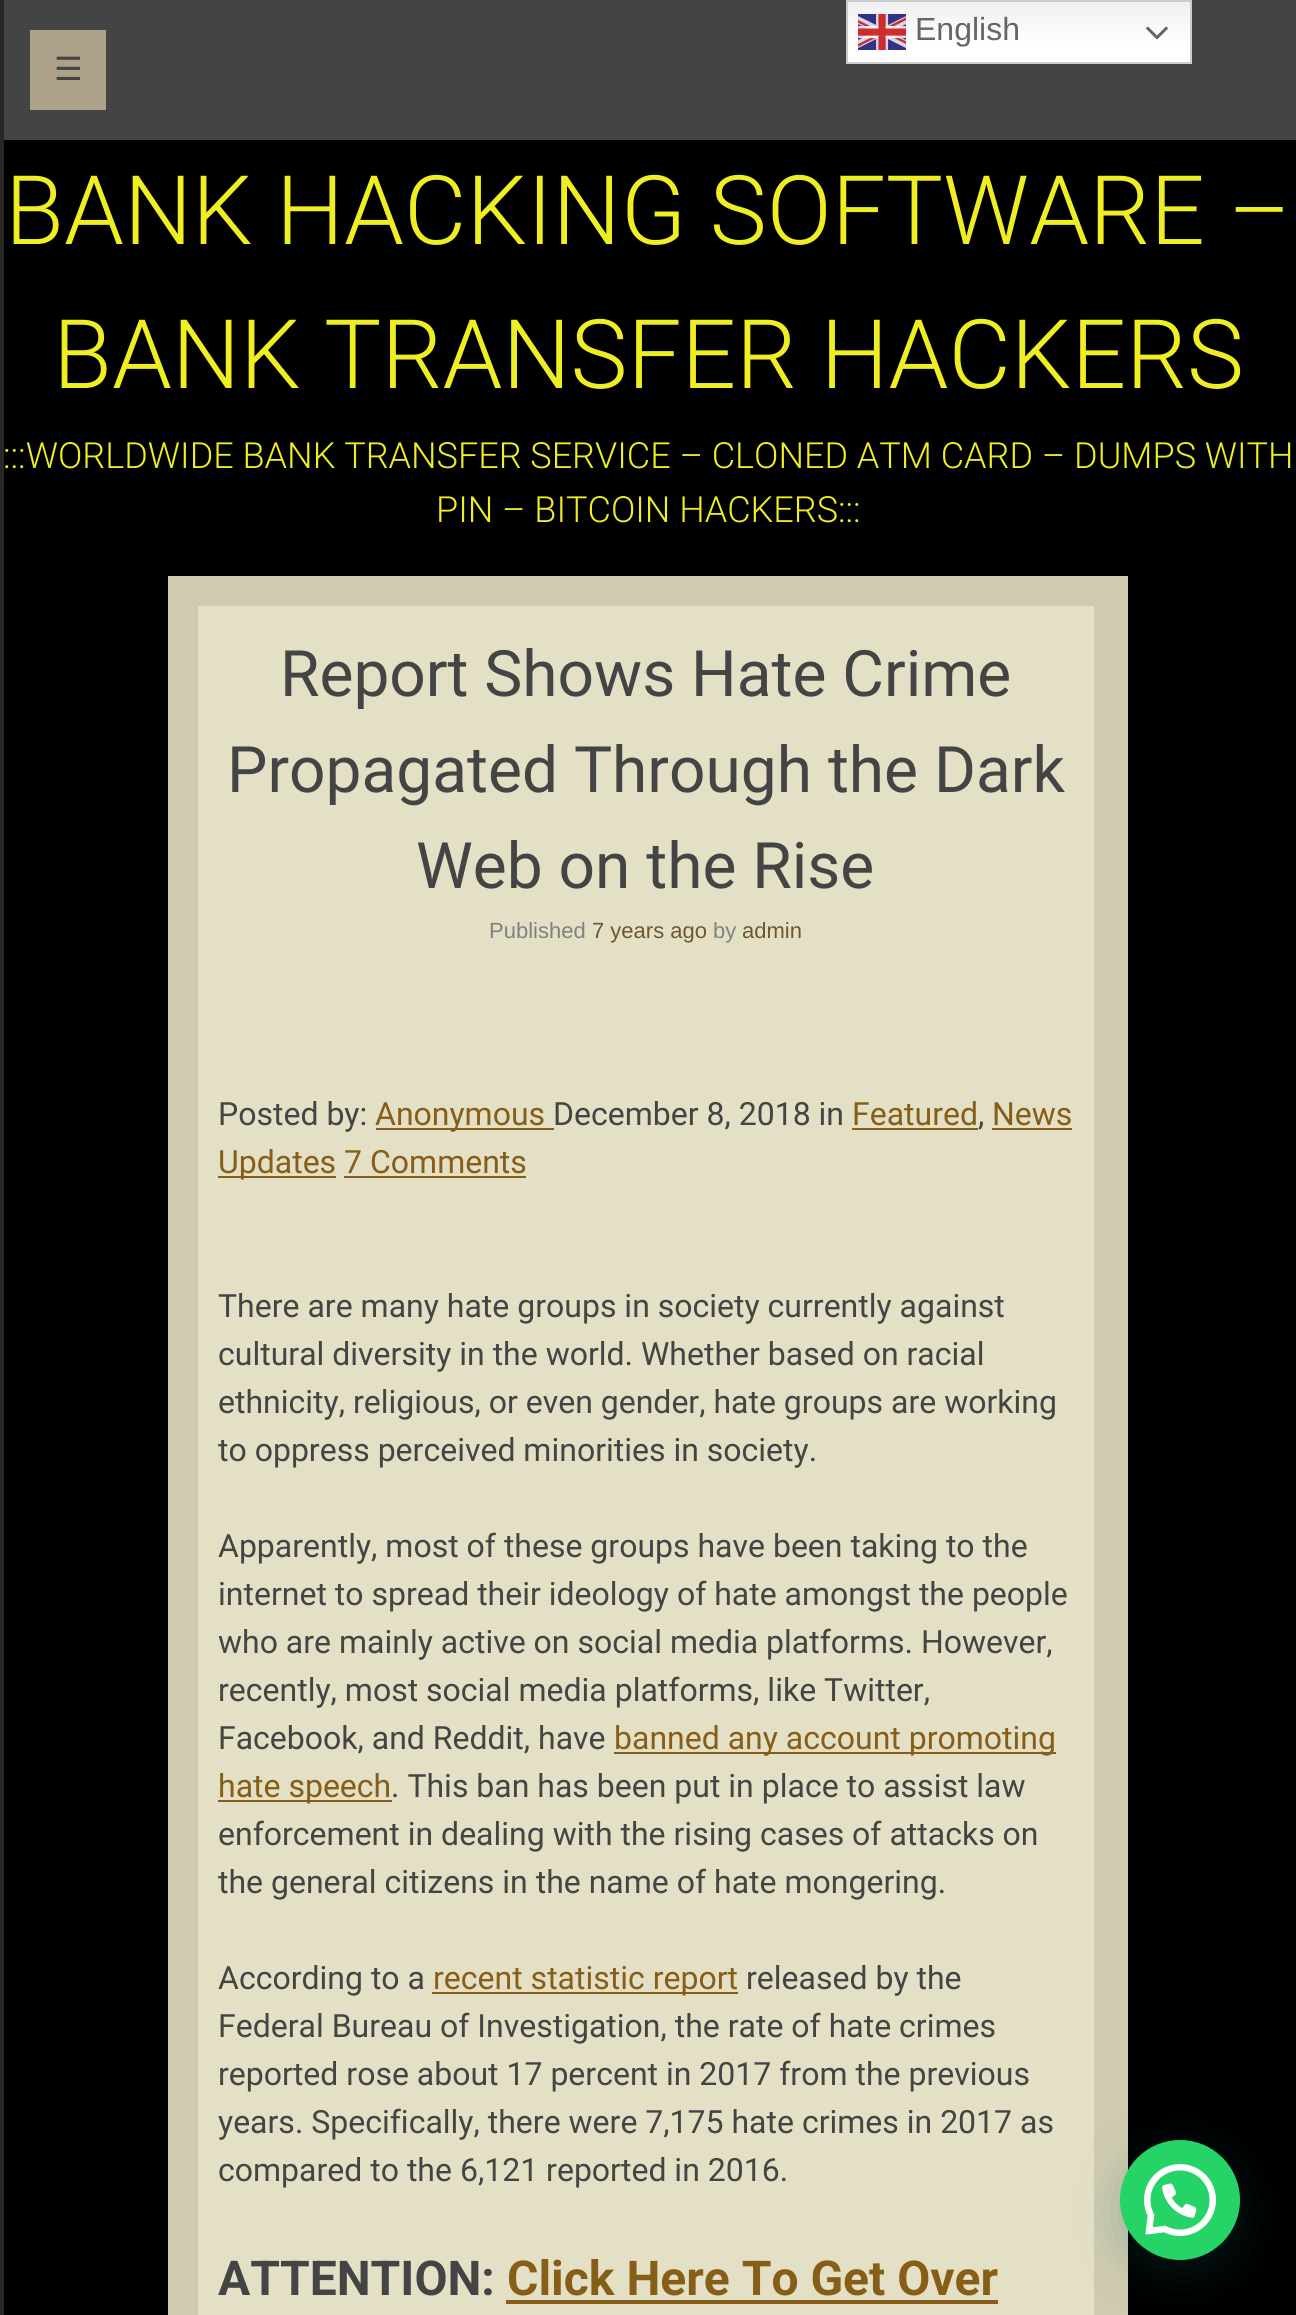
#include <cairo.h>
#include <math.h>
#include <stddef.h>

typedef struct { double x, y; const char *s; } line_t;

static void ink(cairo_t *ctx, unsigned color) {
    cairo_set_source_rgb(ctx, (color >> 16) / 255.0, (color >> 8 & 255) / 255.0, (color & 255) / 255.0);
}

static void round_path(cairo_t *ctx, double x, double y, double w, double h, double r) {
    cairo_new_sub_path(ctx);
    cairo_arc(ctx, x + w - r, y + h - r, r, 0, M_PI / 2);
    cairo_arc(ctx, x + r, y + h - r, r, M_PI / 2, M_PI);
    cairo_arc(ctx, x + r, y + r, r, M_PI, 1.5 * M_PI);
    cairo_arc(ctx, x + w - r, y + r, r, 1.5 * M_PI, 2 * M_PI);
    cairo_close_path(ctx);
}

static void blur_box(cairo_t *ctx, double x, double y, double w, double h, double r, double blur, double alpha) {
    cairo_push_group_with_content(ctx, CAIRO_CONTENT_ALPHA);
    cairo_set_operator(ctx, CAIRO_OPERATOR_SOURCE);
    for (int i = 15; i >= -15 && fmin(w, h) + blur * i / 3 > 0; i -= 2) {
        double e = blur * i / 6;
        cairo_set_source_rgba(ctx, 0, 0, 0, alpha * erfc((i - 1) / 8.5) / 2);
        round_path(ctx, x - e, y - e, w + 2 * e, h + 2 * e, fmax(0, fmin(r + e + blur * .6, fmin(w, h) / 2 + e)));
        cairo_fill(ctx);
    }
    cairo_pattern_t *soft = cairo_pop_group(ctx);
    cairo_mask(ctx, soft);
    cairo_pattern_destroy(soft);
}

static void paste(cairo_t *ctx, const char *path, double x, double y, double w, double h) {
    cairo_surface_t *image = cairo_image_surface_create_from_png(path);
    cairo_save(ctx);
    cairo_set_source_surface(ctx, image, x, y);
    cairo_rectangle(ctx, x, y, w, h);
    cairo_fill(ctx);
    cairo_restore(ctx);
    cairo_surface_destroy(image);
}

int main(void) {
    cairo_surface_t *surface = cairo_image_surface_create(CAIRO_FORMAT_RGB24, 1296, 2315);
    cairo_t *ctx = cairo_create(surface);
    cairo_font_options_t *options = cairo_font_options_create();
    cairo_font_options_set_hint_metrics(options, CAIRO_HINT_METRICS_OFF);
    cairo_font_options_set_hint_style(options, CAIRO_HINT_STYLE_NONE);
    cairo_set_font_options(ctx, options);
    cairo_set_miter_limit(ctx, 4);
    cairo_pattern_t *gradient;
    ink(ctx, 0x000000);
    cairo_paint(ctx);
    ink(ctx, 0x444444);
    cairo_rectangle(ctx, 4, 0, 1292, 140);
    cairo_fill(ctx);
    gradient = cairo_pattern_create_linear(1019, 0, 1019, 64);
    cairo_pattern_add_color_stop_rgba(gradient, 0, 0.937, 0.937, 0.937, 1);
    cairo_pattern_add_color_stop_rgba(gradient, 0.7, 1, 1, 1, 1);
    cairo_set_source(ctx, gradient);
    cairo_pattern_destroy(gradient);
    cairo_rectangle(ctx, 848, 2, 342, 60);
    cairo_fill(ctx);
    cairo_rectangle(ctx, 847, 1, 344, 62);
    ink(ctx, 0xCCCCCC);
    cairo_stroke(ctx);
    paste(ctx, "media/1.png", 858, 14, 48, 36);
    cairo_select_font_face(ctx, "Liberation Sans", CAIRO_FONT_SLANT_NORMAL, CAIRO_FONT_WEIGHT_NORMAL);
    cairo_set_font_size(ctx, 32);
    ink(ctx, 0x666666);
    cairo_move_to(ctx, 915, 40);
    cairo_show_text(ctx, "English");
    paste(ctx, "media/2.png", 1146, 26, 22, 14);
    ink(ctx, 0x2A2622);
    cairo_rectangle(ctx, 0, 0, 4, 2315);
    cairo_fill(ctx);
    ink(ctx, 0xAEA189);
    cairo_rectangle(ctx, 30, 30, 76, 80);
    cairo_fill(ctx);
    cairo_select_font_face(ctx, "DejaVu Sans", CAIRO_FONT_SLANT_NORMAL, CAIRO_FONT_WEIGHT_NORMAL);
    ink(ctx, 0x444444);
    cairo_move_to(ctx, 54, 80);
    cairo_show_text(ctx, "☰");
    cairo_select_font_face(ctx, "Roboto Light", CAIRO_FONT_SLANT_NORMAL, CAIRO_FONT_WEIGHT_NORMAL);
    cairo_set_font_size(ctx, 96);
    ink(ctx, 0xEEEE22);
    cairo_move_to(ctx, 5, 244);
    cairo_show_text(ctx, "BANK HACKING SOFTWARE –");
    cairo_move_to(ctx, 53, 388);
    cairo_show_text(ctx, "BANK TRANSFER HACKERS");
    cairo_set_font_size(ctx, 36);
    cairo_move_to(ctx, 3, 468);
    cairo_show_text(ctx, ":::WORLDWIDE BANK TRANSFER SERVICE – CLONED ATM CARD – DUMPS WITH");
    cairo_move_to(ctx, 436, 522);
    cairo_show_text(ctx, "PIN – BITCOIN HACKERS:::");
    ink(ctx, 0xCFCBB0);
    cairo_rectangle(ctx, 168, 576, 960, 1739);
    cairo_fill(ctx);
    ink(ctx, 0xE4E0C6);
    cairo_rectangle(ctx, 198, 606, 896, 1709);
    cairo_fill(ctx);
    cairo_select_font_face(ctx, "Roboto", CAIRO_FONT_SLANT_NORMAL, CAIRO_FONT_WEIGHT_NORMAL);
    cairo_set_font_size(ctx, 64);
    ink(ctx, 0x444444);
    {
        static const line_t items[] = {
            {280, 696, "Report Shows Hate Crime"},
            {227, 792, "Propagated Through the Dark"},
            {416, 888, "Web on the Rise"},
        };
        for (size_t i = 0; i < sizeof items / sizeof *items; i++) {
            cairo_move_to(ctx, items[i].x, items[i].y);
            cairo_show_text(ctx, items[i].s);
        }
    }
    cairo_select_font_face(ctx, "Liberation Sans", CAIRO_FONT_SLANT_NORMAL, CAIRO_FONT_WEIGHT_NORMAL);
    cairo_set_font_size(ctx, 22);
    ink(ctx, 0x808080);
    cairo_move_to(ctx, 489, 938);
    cairo_show_text(ctx, "Published");
    ink(ctx, 0x6E5730);
    cairo_move_to(ctx, 592, 938);
    cairo_show_text(ctx, "7 years ago");
    ink(ctx, 0x808080);
    cairo_move_to(ctx, 713, 938);
    cairo_show_text(ctx, "by");
    ink(ctx, 0x6E5730);
    cairo_move_to(ctx, 742, 938);
    cairo_show_text(ctx, "admin");
    cairo_select_font_face(ctx, "Roboto", CAIRO_FONT_SLANT_NORMAL, CAIRO_FONT_WEIGHT_NORMAL);
    cairo_set_font_size(ctx, 32);
    ink(ctx, 0x444444);
    cairo_move_to(ctx, 218, 1125);
    cairo_show_text(ctx, "Posted by:");
    ink(ctx, 0x865E18);
    cairo_rectangle(ctx, 376, 1128, 178, 2);
    cairo_fill(ctx);
    cairo_move_to(ctx, 375, 1125);
    cairo_show_text(ctx, "Anonymous");
    ink(ctx, 0x444444);
    cairo_move_to(ctx, 553, 1125);
    cairo_show_text(ctx, "December 8, 2018 in");
    ink(ctx, 0x865E18);
    cairo_move_to(ctx, 852, 1125);
    cairo_show_text(ctx, "Featured");
    cairo_rectangle(ctx, 852, 1128, 126, 2);
    cairo_fill(ctx);
    ink(ctx, 0x444444);
    cairo_move_to(ctx, 978, 1125);
    cairo_show_text(ctx, ",");
    ink(ctx, 0x865E18);
    cairo_move_to(ctx, 992, 1125);
    cairo_show_text(ctx, "News");
    cairo_rectangle(ctx, 992, 1128, 80, 2);
    cairo_fill(ctx);
    cairo_rectangle(ctx, 218, 1176, 118, 2);
    cairo_fill(ctx);
    cairo_move_to(ctx, 218, 1173);
    cairo_show_text(ctx, "Updates 7 Comments");
    cairo_rectangle(ctx, 344, 1176, 182, 2);
    cairo_fill(ctx);
    ink(ctx, 0x444444);
    {
        static const line_t items[] = {
            {218, 1317, "There are many hate groups in society currently against"},
            {218, 1365, "cultural diversity in the world. Whether based on racial"},
            {218, 1413, "ethnicity, religious, or even gender, hate groups are working"},
            {218, 1461, "to oppress perceived minorities in society."},
            {218, 1557, "Apparently, most of these groups have been taking to the"},
            {218, 1605, "internet to spread their ideology of hate amongst the people"},
            {218, 1653, "who are mainly active on social media platforms. However,"},
            {218, 1701, "recently, most social media platforms, like Twitter,"},
            {218, 1749, "Facebook, and Reddit, have"},
        };
        for (size_t i = 0; i < sizeof items / sizeof *items; i++) {
            cairo_move_to(ctx, items[i].x, items[i].y);
            cairo_show_text(ctx, items[i].s);
        }
    }
    ink(ctx, 0x865E18);
    cairo_rectangle(ctx, 614, 1752, 442, 2);
    cairo_fill(ctx);
    cairo_move_to(ctx, 614, 1749);
    cairo_show_text(ctx, "banned any account promoting");
    cairo_rectangle(ctx, 218, 1800, 174, 2);
    cairo_fill(ctx);
    cairo_move_to(ctx, 218, 1797);
    cairo_show_text(ctx, "hate speech");
    ink(ctx, 0x444444);
    {
        static const line_t items[] = {
            {391, 1797, ". This ban has been put in place to assist law"},
            {218, 1845, "enforcement in dealing with the rising cases of attacks on"},
            {218, 1893, "the general citizens in the name of hate mongering."},
            {218, 1989, "According to a"},
        };
        for (size_t i = 0; i < sizeof items / sizeof *items; i++) {
            cairo_move_to(ctx, items[i].x, items[i].y);
            cairo_show_text(ctx, items[i].s);
        }
    }
    ink(ctx, 0x865E18);
    cairo_rectangle(ctx, 432, 1992, 306, 2);
    cairo_fill(ctx);
    cairo_move_to(ctx, 433, 1989);
    cairo_show_text(ctx, "recent statistic report");
    ink(ctx, 0x444444);
    {
        static const line_t items[] = {
            {746, 1989, "released by the"},
            {218, 2037, "Federal Bureau of Investigation, the rate of hate crimes"},
            {218, 2085, "reported rose about 17 percent in 2017 from the previous"},
            {218, 2133, "years. Specifically, there were 7,175 hate crimes in 2017 as"},
            {218, 2181, "compared to the 6,121 reported in 2016."},
        };
        for (size_t i = 0; i < sizeof items / sizeof *items; i++) {
            cairo_move_to(ctx, items[i].x, items[i].y);
            cairo_show_text(ctx, items[i].s);
        }
    }
    cairo_select_font_face(ctx, "Roboto", CAIRO_FONT_SLANT_NORMAL, CAIRO_FONT_WEIGHT_BOLD);
    cairo_set_font_size(ctx, 48);
    cairo_move_to(ctx, 218, 2295);
    cairo_show_text(ctx, "ATTENTION:");
    ink(ctx, 0x865E18);
    cairo_move_to(ctx, 507, 2295);
    cairo_show_text(ctx, "Click Here To Get Over");
    cairo_rectangle(ctx, 506, 2300, 492, 4);
    cairo_fill(ctx);
    ink(ctx, 0x075E54);
    blur_box(ctx, 1122, 2152, 120, 120, 60, 24, 0.24);
    ink(ctx, 0x25D366);
    cairo_arc(ctx, 1180, 2200, 60, 0, 2 * M_PI);
    cairo_fill(ctx);
    paste(ctx, "media/3.png", 1144, 2164, 72, 72);
    cairo_surface_write_to_png(surface, "image.png");
    cairo_font_options_destroy(options);
    cairo_destroy(ctx);
    cairo_surface_destroy(surface);
    return 0;
}
